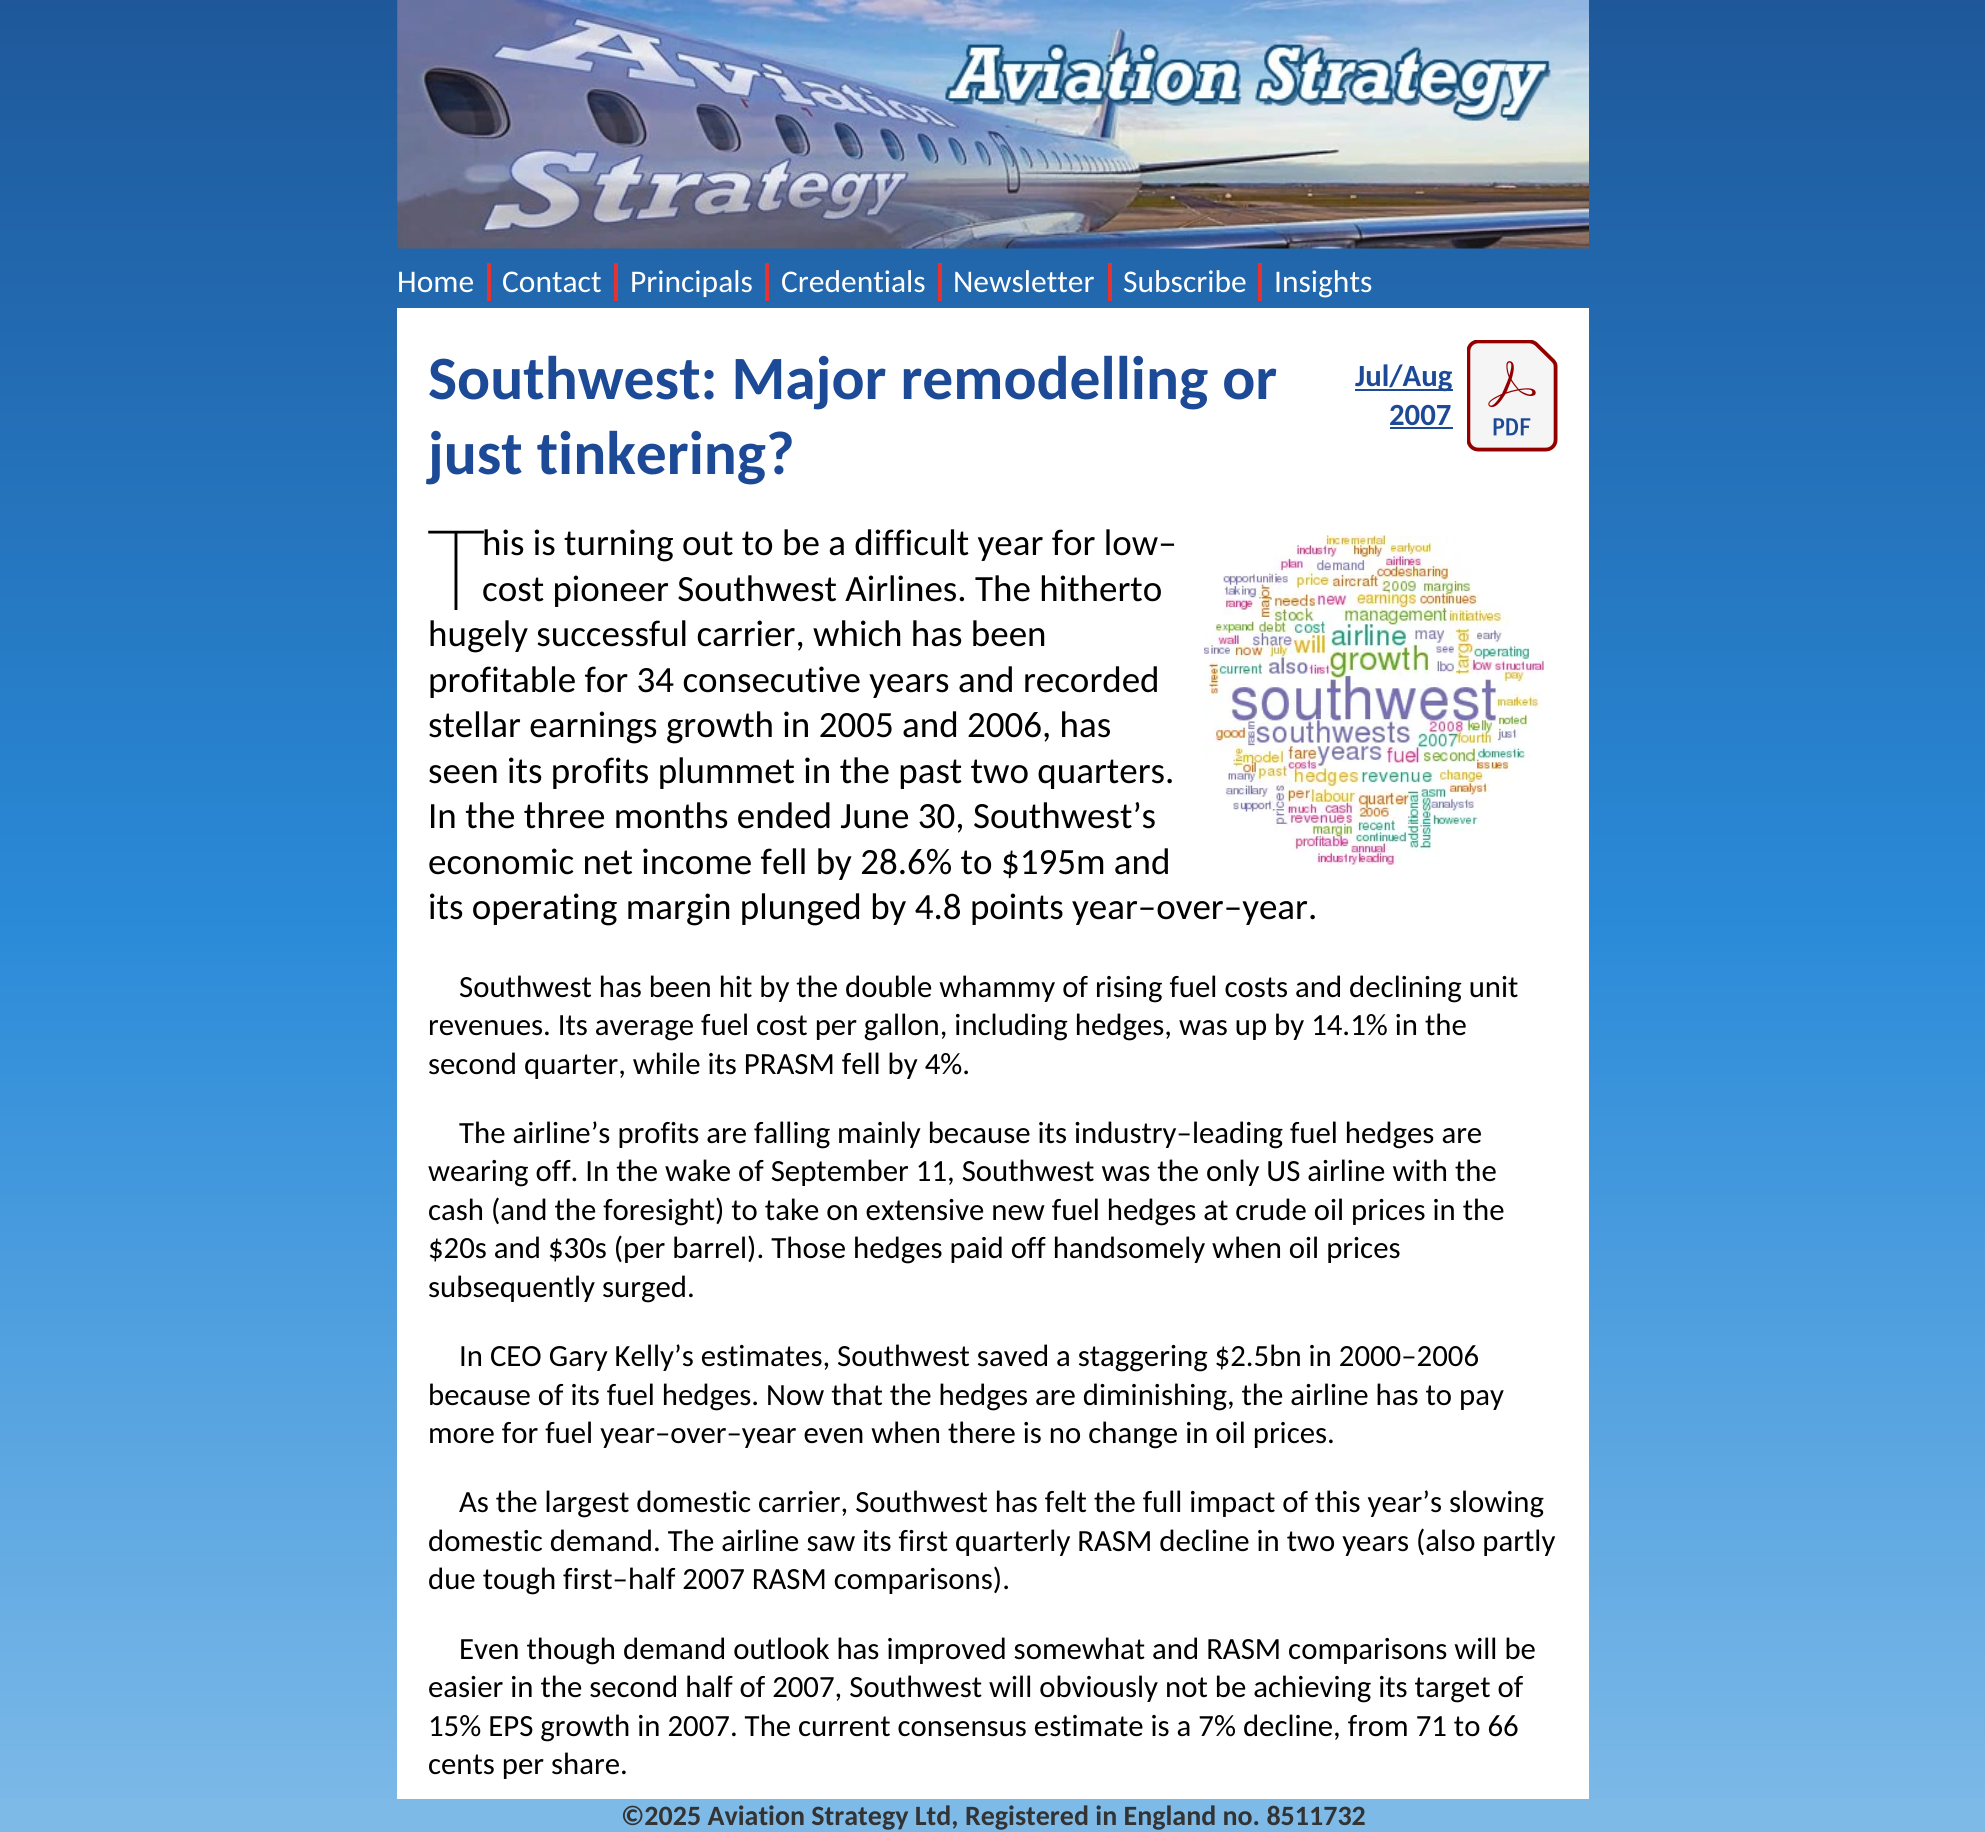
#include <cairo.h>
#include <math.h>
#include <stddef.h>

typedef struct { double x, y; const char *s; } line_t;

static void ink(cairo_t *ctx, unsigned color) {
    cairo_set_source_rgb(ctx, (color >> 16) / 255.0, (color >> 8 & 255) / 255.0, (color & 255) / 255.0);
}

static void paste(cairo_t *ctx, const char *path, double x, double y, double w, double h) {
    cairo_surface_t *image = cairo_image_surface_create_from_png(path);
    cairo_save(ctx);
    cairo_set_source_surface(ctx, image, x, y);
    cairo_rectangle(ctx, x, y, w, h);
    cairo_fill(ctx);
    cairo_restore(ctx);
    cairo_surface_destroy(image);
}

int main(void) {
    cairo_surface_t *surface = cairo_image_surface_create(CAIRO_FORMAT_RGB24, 1985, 1832);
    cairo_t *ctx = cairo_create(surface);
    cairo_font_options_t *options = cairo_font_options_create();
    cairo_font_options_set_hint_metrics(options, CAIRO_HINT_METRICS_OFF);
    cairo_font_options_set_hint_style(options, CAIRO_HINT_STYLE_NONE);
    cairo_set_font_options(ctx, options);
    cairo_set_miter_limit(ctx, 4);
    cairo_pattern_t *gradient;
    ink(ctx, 0xFFFFFF);
    cairo_paint(ctx);
    gradient = cairo_pattern_create_linear(993, 0, 993, 1832);
    cairo_pattern_add_color_stop_rgba(gradient, 0, 0.118, 0.345, 0.604, 1);
    cairo_pattern_add_color_stop_rgba(gradient, 0.5, 0.165, 0.541, 0.847, 1);
    cairo_pattern_add_color_stop_rgba(gradient, 1, 0.494, 0.729, 0.91, 1);
    cairo_set_source(ctx, gradient);
    cairo_pattern_destroy(gradient);
    cairo_rectangle(ctx, 0, 0, 1985, 1799);
    cairo_fill(ctx);
    paste(ctx, "media/1.png", 397, 0, 1192, 249);
    ink(ctx, 0xE33333);
    cairo_rectangle(ctx, 487, 263, 4, 38);
    cairo_fill(ctx);
    cairo_select_font_face(ctx, "Carlito", CAIRO_FONT_SLANT_NORMAL, CAIRO_FONT_WEIGHT_NORMAL);
    cairo_set_font_size(ctx, 31.5);
    ink(ctx, 0xFFFFFF);
    cairo_move_to(ctx, 397, 292);
    cairo_show_text(ctx, "Home");
    ink(ctx, 0xE33333);
    cairo_rectangle(ctx, 614, 263, 4, 38);
    cairo_fill(ctx);
    ink(ctx, 0xFFFFFF);
    cairo_move_to(ctx, 502, 292);
    cairo_show_text(ctx, "Contact");
    ink(ctx, 0xE33333);
    cairo_rectangle(ctx, 765, 263, 4, 38);
    cairo_fill(ctx);
    ink(ctx, 0xFFFFFF);
    cairo_move_to(ctx, 630, 292);
    cairo_show_text(ctx, "Principals");
    ink(ctx, 0xE33333);
    cairo_rectangle(ctx, 938, 263, 4, 38);
    cairo_fill(ctx);
    ink(ctx, 0xFFFFFF);
    cairo_move_to(ctx, 781, 292);
    cairo_show_text(ctx, "Credentials");
    ink(ctx, 0xE33333);
    cairo_rectangle(ctx, 1108, 263, 4, 38);
    cairo_fill(ctx);
    ink(ctx, 0xFFFFFF);
    cairo_move_to(ctx, 953, 292);
    cairo_show_text(ctx, "Newsletter");
    ink(ctx, 0xE33333);
    cairo_rectangle(ctx, 1258, 263, 4, 38);
    cairo_fill(ctx);
    ink(ctx, 0xFFFFFF);
    cairo_move_to(ctx, 1123, 292);
    cairo_show_text(ctx, "Subscribe");
    cairo_move_to(ctx, 1274, 292);
    cairo_show_text(ctx, "Insights");
    cairo_rectangle(ctx, 397, 308, 1192, 1491);
    cairo_fill(ctx);
    cairo_select_font_face(ctx, "Carlito", CAIRO_FONT_SLANT_NORMAL, CAIRO_FONT_WEIGHT_BOLD);
    cairo_set_font_size(ctx, 61.6);
    ink(ctx, 0x1D4A97);
    cairo_move_to(ctx, 428, 399);
    cairo_show_text(ctx, "Southwest: Major remodelling or");
    cairo_rectangle(ctx, 1355, 389, 98, 2);
    cairo_fill(ctx);
    cairo_set_font_size(ctx, 30.8);
    cairo_move_to(ctx, 1355, 386);
    cairo_show_text(ctx, "Jul/Aug");
    paste(ctx, "media/2.png", 1467, 340, 91, 112);
    cairo_move_to(ctx, 1389, 425);
    cairo_show_text(ctx, "2007");
    cairo_rectangle(ctx, 1390, 427, 63, 2);
    cairo_fill(ctx);
    cairo_set_font_size(ctx, 61.6);
    cairo_move_to(ctx, 428, 474);
    cairo_show_text(ctx, "just tinkering?");
    cairo_select_font_face(ctx, "Noto Sans Thin", CAIRO_FONT_SLANT_NORMAL, CAIRO_FONT_WEIGHT_NORMAL);
    cairo_set_font_size(ctx, 111);
    ink(ctx, 0x000000);
    cairo_move_to(ctx, 428, 610);
    cairo_show_text(ctx, "T");
    cairo_select_font_face(ctx, "Carlito", CAIRO_FONT_SLANT_NORMAL, CAIRO_FONT_WEIGHT_NORMAL);
    cairo_set_font_size(ctx, 37);
    {
        static const line_t items[] = {
            {482, 555, "his is turning out to be a difficult year for low–"},
            {482, 601, "cost pioneer Southwest Airlines. The hitherto"},
            {428, 646, "hugely successful carrier, which has been"},
            {428, 692, "profitable for 34 consecutive years and recorded"},
            {428, 737, "stellar earnings growth in 2005 and 2006, has"},
            {428, 783, "seen its profits plummet in the past two quarters."},
            {428, 828, "In the three months ended June 30, Southwest’s"},
            {428, 874, "economic net income fell by 28.6% to $195m and"},
            {428, 919, "its operating margin plunged by 4.8 points year–over–year."},
        };
        for (size_t i = 0; i < sizeof items / sizeof *items; i++) {
            cairo_move_to(ctx, items[i].x, items[i].y);
            cairo_show_text(ctx, items[i].s);
        }
    }
    paste(ctx, "media/3.png", 1204, 535, 340, 330);
    cairo_set_font_size(ctx, 30.8);
    {
        static const line_t items[] = {
            {459, 997, "Southwest has been hit by the double whammy of rising fuel costs and declining unit"},
            {428, 1035, "revenues. Its average fuel cost per gallon, including hedges, was up by 14.1% in the"},
            {428, 1074, "second quarter, while its PRASM fell by 4%."},
            {459, 1143, "The airline’s profits are falling mainly because its industry–leading fuel hedges are"},
            {428, 1181, "wearing off. In the wake of September 11, Southwest was the only US airline with the"},
            {428, 1220, "cash (and the foresight) to take on extensive new fuel hedges at crude oil prices in the"},
            {428, 1258, "$20s and $30s (per barrel). Those hedges paid off handsomely when oil prices"},
            {428, 1297, "subsequently surged."},
            {459, 1366, "In CEO Gary Kelly’s estimates, Southwest saved a staggering $2.5bn in 2000–2006"},
            {428, 1405, "because of its fuel hedges. Now that the hedges are diminishing, the airline has to pay"},
            {428, 1443, "more for fuel year–over–year even when there is no change in oil prices."},
            {459, 1512, "As the largest domestic carrier, Southwest has felt the full impact of this year’s slowing"},
            {428, 1551, "domestic demand. The airline saw its first quarterly RASM decline in two years (also partly"},
            {428, 1589, "due tough first–half 2007 RASM comparisons)."},
            {459, 1659, "Even though demand outlook has improved somewhat and RASM comparisons will be"},
            {428, 1697, "easier in the second half of 2007, Southwest will obviously not be achieving its target of"},
            {428, 1736, "15% EPS growth in 2007. The current consensus estimate is a 7% decline, from 71 to 66"},
            {428, 1774, "cents per share."},
        };
        for (size_t i = 0; i < sizeof items / sizeof *items; i++) {
            cairo_move_to(ctx, items[i].x, items[i].y);
            cairo_show_text(ctx, items[i].s);
        }
    }
    ink(ctx, 0x7EBAE8);
    cairo_rectangle(ctx, 0, 1799, 1985, 33);
    cairo_fill(ctx);
    cairo_select_font_face(ctx, "Carlito", CAIRO_FONT_SLANT_NORMAL, CAIRO_FONT_WEIGHT_BOLD);
    cairo_set_font_size(ctx, 28);
    ink(ctx, 0x333333);
    cairo_move_to(ctx, 621, 1825);
    cairo_show_text(ctx, "©2025 Aviation Strategy Ltd, Registered in England no. 8511732");
    cairo_surface_write_to_png(surface, "image.png");
    cairo_font_options_destroy(options);
    cairo_destroy(ctx);
    cairo_surface_destroy(surface);
    return 0;
}
